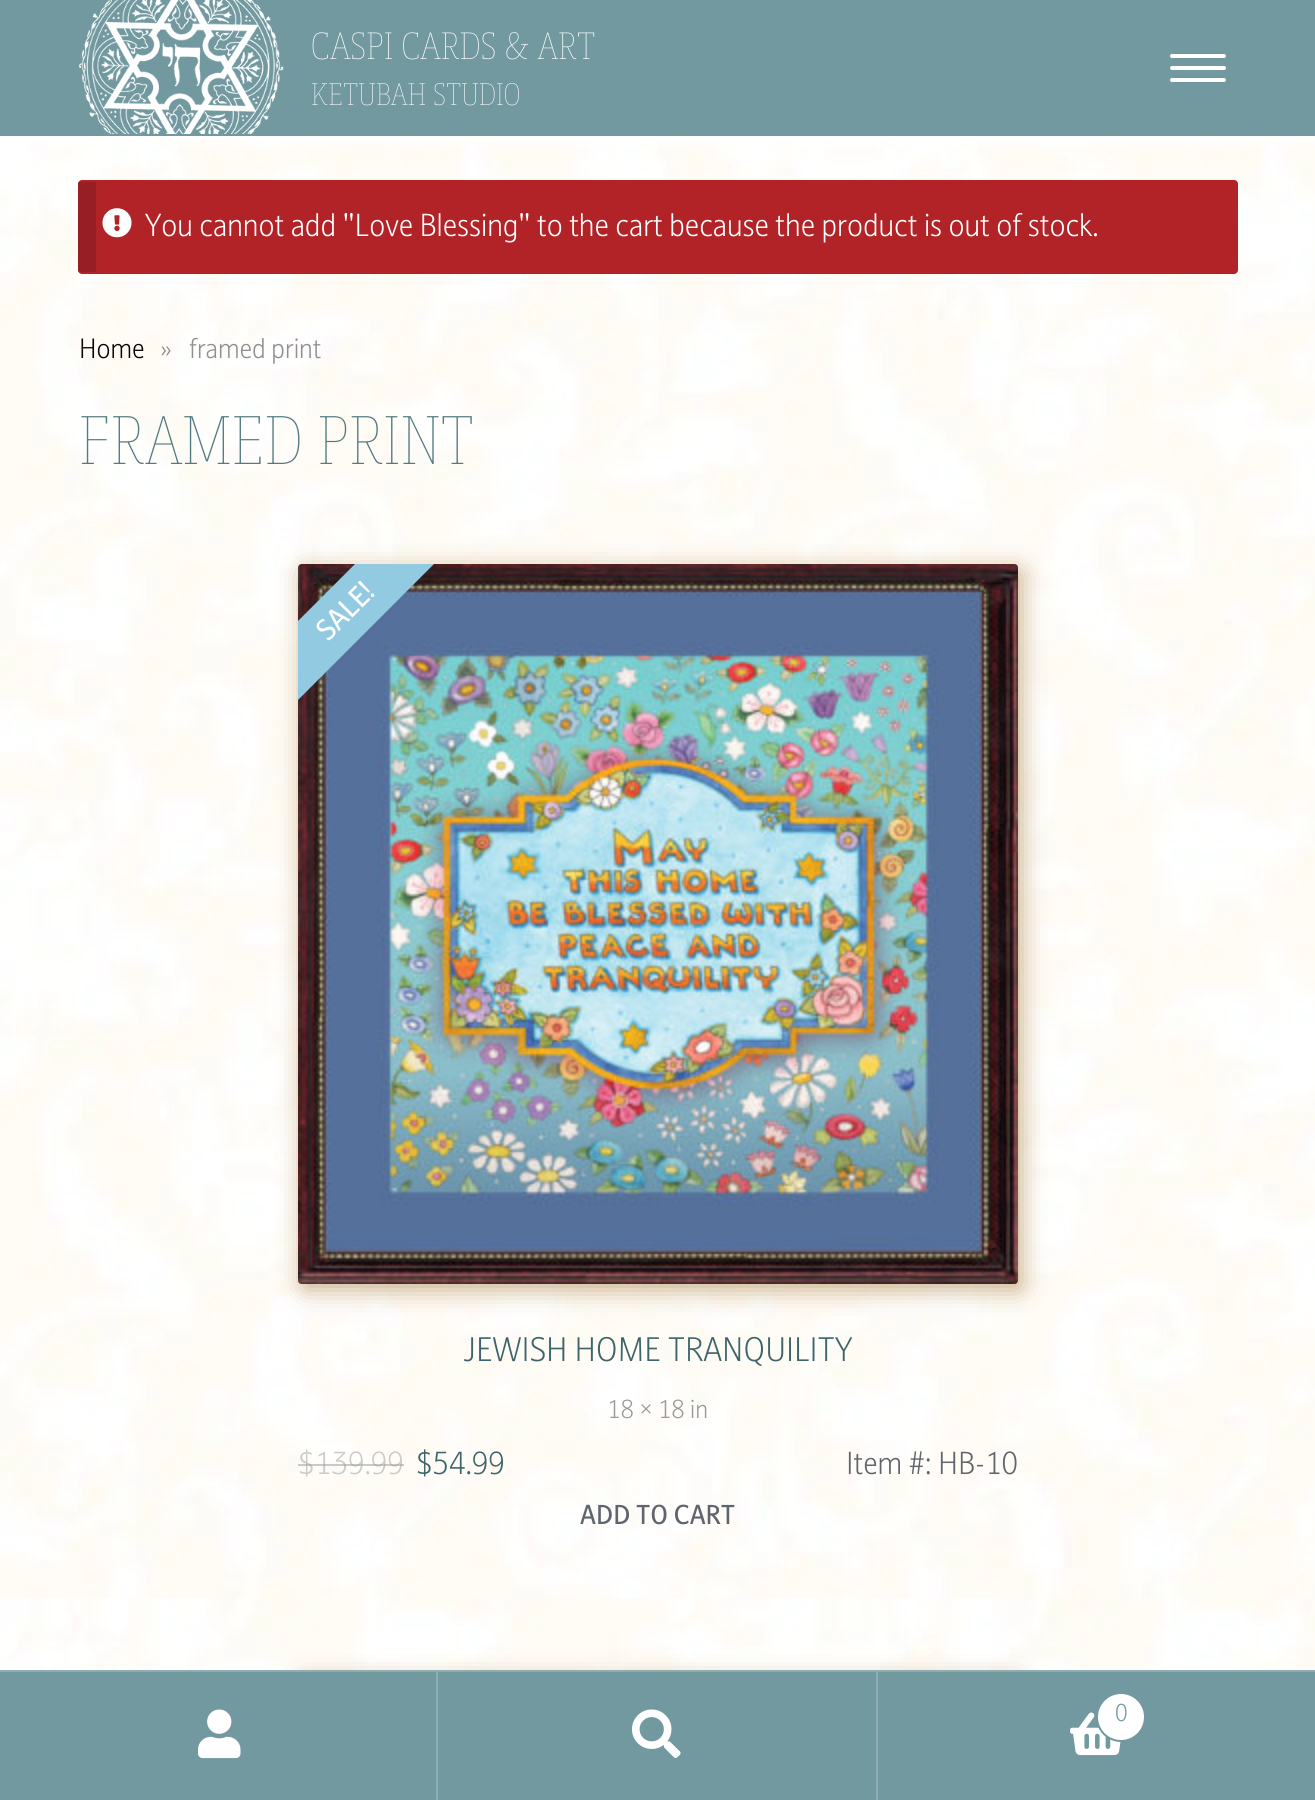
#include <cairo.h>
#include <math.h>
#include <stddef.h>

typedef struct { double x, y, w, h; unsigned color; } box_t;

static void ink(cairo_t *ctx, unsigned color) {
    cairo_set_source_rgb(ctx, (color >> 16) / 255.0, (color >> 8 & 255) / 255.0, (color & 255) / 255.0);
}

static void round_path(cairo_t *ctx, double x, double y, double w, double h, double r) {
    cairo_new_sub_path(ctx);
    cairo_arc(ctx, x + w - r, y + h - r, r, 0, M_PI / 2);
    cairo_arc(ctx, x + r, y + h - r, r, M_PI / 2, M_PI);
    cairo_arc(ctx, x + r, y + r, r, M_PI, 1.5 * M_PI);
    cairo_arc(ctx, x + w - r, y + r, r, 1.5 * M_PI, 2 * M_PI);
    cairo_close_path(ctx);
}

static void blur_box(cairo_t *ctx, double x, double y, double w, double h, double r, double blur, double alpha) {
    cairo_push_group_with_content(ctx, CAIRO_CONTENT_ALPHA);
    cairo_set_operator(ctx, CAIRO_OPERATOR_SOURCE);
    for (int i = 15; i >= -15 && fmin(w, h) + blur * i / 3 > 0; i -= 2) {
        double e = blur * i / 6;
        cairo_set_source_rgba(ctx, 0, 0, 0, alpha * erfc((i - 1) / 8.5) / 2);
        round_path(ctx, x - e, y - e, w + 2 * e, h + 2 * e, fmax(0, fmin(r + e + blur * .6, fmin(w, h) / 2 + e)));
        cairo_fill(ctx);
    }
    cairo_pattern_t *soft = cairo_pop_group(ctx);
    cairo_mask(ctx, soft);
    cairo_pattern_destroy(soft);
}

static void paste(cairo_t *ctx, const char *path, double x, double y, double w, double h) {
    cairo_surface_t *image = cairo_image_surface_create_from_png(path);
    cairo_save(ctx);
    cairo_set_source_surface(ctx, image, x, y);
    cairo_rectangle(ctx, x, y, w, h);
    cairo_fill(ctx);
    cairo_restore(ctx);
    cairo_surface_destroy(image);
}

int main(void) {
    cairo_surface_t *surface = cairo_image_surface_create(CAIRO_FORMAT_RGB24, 1315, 1800);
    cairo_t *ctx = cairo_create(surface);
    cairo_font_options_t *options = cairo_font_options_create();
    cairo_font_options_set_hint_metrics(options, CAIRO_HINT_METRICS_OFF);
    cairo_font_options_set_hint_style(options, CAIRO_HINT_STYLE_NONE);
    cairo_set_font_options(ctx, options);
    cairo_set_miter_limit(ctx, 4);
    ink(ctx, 0xFFFFFF);
    cairo_paint(ctx);
    paste(ctx, "media/1.png", 0, 136, 1315, 1534);
    ink(ctx, 0x7299A0);
    cairo_rectangle(ctx, 0, 0, 1315, 136);
    cairo_fill(ctx);
    paste(ctx, "media/2.png", 78, 0, 206, 134);
    cairo_select_font_face(ctx, "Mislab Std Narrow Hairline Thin", CAIRO_FONT_SLANT_NORMAL, CAIRO_FONT_WEIGHT_NORMAL);
    cairo_set_font_size(ctx, 39.75);
    ink(ctx, 0xFFFFFF);
    cairo_move_to(ctx, 311, 59);
    cairo_show_text(ctx, "CASPI CARDS & ART");
    cairo_set_font_size(ctx, 32.5);
    cairo_move_to(ctx, 311, 105);
    cairo_show_text(ctx, "KETUBAH STUDIO");
    round_path(ctx, 1170, 54, 56, 4, 2);
    cairo_fill(ctx);
    round_path(ctx, 1170, 66, 56, 4, 2);
    cairo_fill(ctx);
    round_path(ctx, 1170, 78, 56, 4, 2);
    cairo_fill(ctx);
    ink(ctx, 0xB22328);
    round_path(ctx, 78, 180, 1160, 94, 4);
    cairo_fill(ctx);
    cairo_set_source_rgba(ctx, 0, 0, 0, 0.15);
    cairo_rectangle(ctx, 78, 182, 18, 90);
    cairo_fill(ctx);
    paste(ctx, "media/3.png", 102, 208, 30, 30);
    cairo_select_font_face(ctx, "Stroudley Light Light", CAIRO_FONT_SLANT_NORMAL, CAIRO_FONT_WEIGHT_NORMAL);
    cairo_set_font_size(ctx, 30);
    ink(ctx, 0xFFFFFF);
    cairo_move_to(ctx, 145, 236);
    cairo_show_text(ctx, "You cannot add \"Love Blessing\" to the cart because the product is out of stock.");
    cairo_set_font_size(ctx, 26.25);
    ink(ctx, 0x050505);
    cairo_move_to(ctx, 79, 358);
    cairo_show_text(ctx, "Home");
    ink(ctx, 0x8F8F8F);
    cairo_move_to(ctx, 160, 358);
    cairo_show_text(ctx, "»");
    cairo_move_to(ctx, 189, 358);
    cairo_show_text(ctx, "framed print");
    cairo_select_font_face(ctx, "Mislab Std Narrow Hairline Thin", CAIRO_FONT_SLANT_NORMAL, CAIRO_FONT_WEIGHT_NORMAL);
    cairo_set_font_size(ctx, 72);
    ink(ctx, 0x527B81);
    cairo_move_to(ctx, 79, 464);
    cairo_show_text(ctx, "FRAMED PRINT");
    ink(ctx, 0xBC9C6C);
    blur_box(ctx, 302, 570, 720, 720, 4, 12, 0.78);
    paste(ctx, "media/4.png", 298, 564, 720, 720);
    ink(ctx, 0x92CAE1);
    cairo_new_path(ctx);
    cairo_move_to(ctx, 434, 564);
    cairo_line_to(ctx, 298, 700);
    cairo_line_to(ctx, 298, 621);
    cairo_line_to(ctx, 355, 564);
    cairo_close_path(ctx);
    cairo_fill(ctx);
    cairo_select_font_face(ctx, "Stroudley", CAIRO_FONT_SLANT_NORMAL, CAIRO_FONT_WEIGHT_NORMAL);
    cairo_set_font_size(ctx, 28);
    ink(ctx, 0xFFFFFF);
    cairo_save(ctx);
    cairo_translate(ctx, 328, 642);
    cairo_rotate(ctx, -45 * M_PI / 180);
    cairo_move_to(ctx, 0, 0);
    cairo_show_text(ctx, "SALE!");
    cairo_restore(ctx);
    cairo_select_font_face(ctx, "Stroudley Light Light", CAIRO_FONT_SLANT_NORMAL, CAIRO_FONT_WEIGHT_NORMAL);
    cairo_set_font_size(ctx, 32);
    ink(ctx, 0x3D646A);
    cairo_move_to(ctx, 463, 1361);
    cairo_show_text(ctx, "JEWISH HOME TRANQUILITY");
    cairo_set_font_size(ctx, 24.5);
    ink(ctx, 0x999999);
    cairo_move_to(ctx, 607, 1418);
    cairo_show_text(ctx, "18 × 18 in");
    cairo_set_font_size(ctx, 30);
    ink(ctx, 0xCCCBC9);
    cairo_move_to(ctx, 298, 1474);
    cairo_show_text(ctx, "$");
    cairo_set_source_rgba(ctx, 0.6, 0.6, 0.6, 0.5);
    cairo_rectangle(ctx, 298, 1464, 16, 2);
    cairo_fill(ctx);
    ink(ctx, 0xCCCBC9);
    cairo_move_to(ctx, 315, 1474);
    cairo_show_text(ctx, "139.99");
    cairo_set_source_rgba(ctx, 0.6, 0.6, 0.6, 0.5);
    cairo_rectangle(ctx, 314, 1464, 90, 2);
    cairo_fill(ctx);
    ink(ctx, 0x3D646A);
    cairo_move_to(ctx, 416, 1474);
    cairo_show_text(ctx, "$54.99");
    ink(ctx, 0x60646C);
    cairo_move_to(ctx, 846, 1474);
    cairo_show_text(ctx, "Item #: HB-10");
    cairo_select_font_face(ctx, "Stroudley", CAIRO_FONT_SLANT_NORMAL, CAIRO_FONT_WEIGHT_NORMAL);
    cairo_set_font_size(ctx, 25.75);
    cairo_move_to(ctx, 580, 1524);
    cairo_show_text(ctx, "ADD TO CART");
    ink(ctx, 0xBC9C6C);
    blur_box(ctx, 302, 1680, 720, 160, 4, 12, 0.78);
    {
        static const box_t items[] = {
            {0, 1670, 1315, 2, 0x8EADB3},
            {0, 1672, 436, 128, 0x7299A0},
            {436, 1672, 2, 128, 0x8EADB3},
        };
        for (size_t i = 0; i < sizeof items / sizeof *items; i++) {
            ink(ctx, items[i].color);
            cairo_rectangle(ctx, items[i].x, items[i].y, items[i].w, items[i].h);
            cairo_fill(ctx);
        }
    }
    paste(ctx, "media/5.png", 198, 1709, 43, 50);
    ink(ctx, 0x7299A0);
    cairo_rectangle(ctx, 438, 1672, 438, 128);
    cairo_fill(ctx);
    ink(ctx, 0x8EADB3);
    cairo_rectangle(ctx, 876, 1672, 2, 128);
    cairo_fill(ctx);
    paste(ctx, "media/6.png", 632, 1709, 49, 49);
    ink(ctx, 0x7299A0);
    cairo_rectangle(ctx, 878, 1672, 437, 128);
    cairo_fill(ctx);
    paste(ctx, "media/7.png", 1070, 1712, 51, 44);
    ink(ctx, 0xFFFFFF);
    cairo_arc(ctx, 1121, 1717, 24, 0, 2 * M_PI);
    cairo_fill_preserve(ctx);
    ink(ctx, 0x7299A0);
    cairo_stroke(ctx);
    cairo_select_font_face(ctx, "Stroudley Light Light", CAIRO_FONT_SLANT_NORMAL, CAIRO_FONT_WEIGHT_NORMAL);
    cairo_set_font_size(ctx, 23);
    cairo_move_to(ctx, 1115, 1721);
    cairo_show_text(ctx, "0");
    cairo_surface_write_to_png(surface, "image.png");
    cairo_font_options_destroy(options);
    cairo_destroy(ctx);
    cairo_surface_destroy(surface);
    return 0;
}
